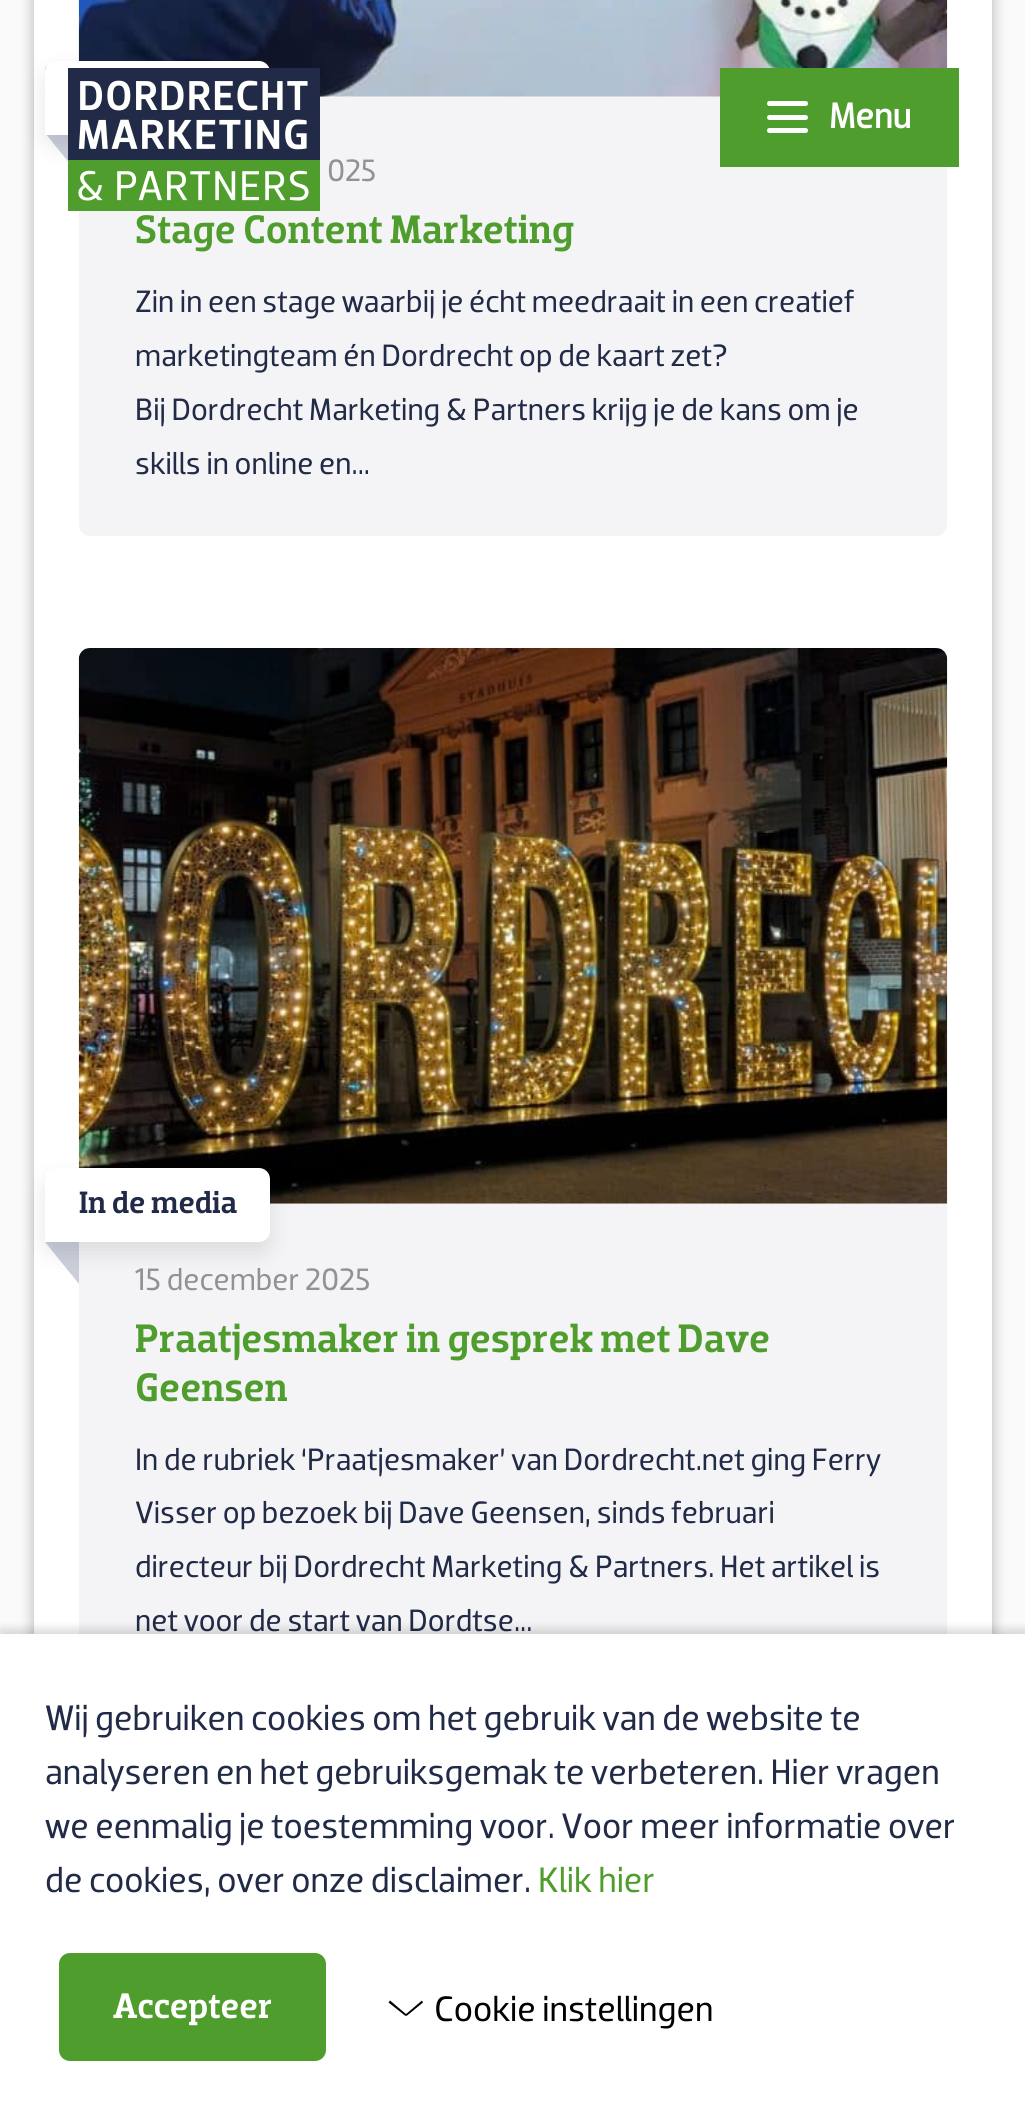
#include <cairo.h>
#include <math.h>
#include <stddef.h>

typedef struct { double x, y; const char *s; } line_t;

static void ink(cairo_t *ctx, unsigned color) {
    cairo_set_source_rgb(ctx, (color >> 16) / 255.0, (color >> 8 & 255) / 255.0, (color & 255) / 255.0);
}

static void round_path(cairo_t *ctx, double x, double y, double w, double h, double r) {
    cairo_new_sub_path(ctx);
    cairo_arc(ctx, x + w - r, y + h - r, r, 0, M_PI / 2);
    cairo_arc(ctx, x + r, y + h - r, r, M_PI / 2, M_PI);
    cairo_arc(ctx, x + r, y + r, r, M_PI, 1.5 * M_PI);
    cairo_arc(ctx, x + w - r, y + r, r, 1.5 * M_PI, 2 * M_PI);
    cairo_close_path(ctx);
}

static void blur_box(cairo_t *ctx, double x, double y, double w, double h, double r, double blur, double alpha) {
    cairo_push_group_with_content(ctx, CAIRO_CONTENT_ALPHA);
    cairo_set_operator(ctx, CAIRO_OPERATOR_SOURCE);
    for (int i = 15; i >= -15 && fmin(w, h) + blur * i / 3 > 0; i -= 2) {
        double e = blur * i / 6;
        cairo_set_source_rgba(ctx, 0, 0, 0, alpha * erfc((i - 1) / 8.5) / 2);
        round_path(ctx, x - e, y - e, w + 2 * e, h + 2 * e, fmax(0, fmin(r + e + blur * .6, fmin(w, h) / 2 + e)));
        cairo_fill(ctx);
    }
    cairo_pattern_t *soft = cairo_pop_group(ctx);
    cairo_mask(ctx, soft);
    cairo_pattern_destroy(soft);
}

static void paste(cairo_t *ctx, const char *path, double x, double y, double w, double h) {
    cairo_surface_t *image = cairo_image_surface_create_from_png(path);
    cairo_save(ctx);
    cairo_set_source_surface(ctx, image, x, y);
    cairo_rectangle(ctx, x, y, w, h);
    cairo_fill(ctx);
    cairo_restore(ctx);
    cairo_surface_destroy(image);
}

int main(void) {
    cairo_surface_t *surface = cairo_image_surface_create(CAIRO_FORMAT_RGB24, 1025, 2118);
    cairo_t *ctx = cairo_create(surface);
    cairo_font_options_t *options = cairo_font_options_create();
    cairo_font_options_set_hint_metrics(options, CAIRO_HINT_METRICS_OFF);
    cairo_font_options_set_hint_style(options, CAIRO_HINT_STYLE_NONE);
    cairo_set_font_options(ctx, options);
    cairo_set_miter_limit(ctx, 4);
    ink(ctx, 0xFAFAFA);
    cairo_paint(ctx);
    ink(ctx, 0x000000);
    blur_box(ctx, 34, -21, 958, 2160, 0, 7, 0.3);
    ink(ctx, 0xFFFFFF);
    cairo_rectangle(ctx, 34, 0, 958, 1634);
    cairo_fill(ctx);
    paste(ctx, "media/2.png", 78, 0, 870, 97);
    ink(ctx, 0xF4F4F7);
    cairo_new_path(ctx);
    cairo_move_to(ctx, 79, 97);
    cairo_line_to(ctx, 947, 97);
    cairo_line_to(ctx, 947, 525);
    cairo_curve_to(ctx, 947, 531, 942, 536, 936, 536);
    cairo_line_to(ctx, 90, 536);
    cairo_curve_to(ctx, 84, 536, 79, 531, 79, 525);
    cairo_close_path(ctx);
    cairo_fill(ctx);
    ink(ctx, 0xCBCFDC);
    cairo_new_path(ctx);
    cairo_move_to(ctx, 56, 73);
    cairo_line_to(ctx, 68, 86);
    cairo_curve_to(ctx, 74, 94, 79, 105, 79, 112);
    cairo_line_to(ctx, 79, 175);
    cairo_line_to(ctx, 45, 133);
    cairo_line_to(ctx, 45, 70);
    cairo_curve_to(ctx, 45, 64, 50, 65, 56, 73);
    cairo_close_path(ctx);
    cairo_fill(ctx);
    ink(ctx, 0x000000);
    blur_box(ctx, 45, 72, 225, 74, 11, 11, 0.1);
    ink(ctx, 0xFFFFFF);
    cairo_new_path(ctx);
    cairo_move_to(ctx, 56, 61);
    cairo_line_to(ctx, 259, 61);
    cairo_curve_to(ctx, 265, 61, 270, 66, 270, 72);
    cairo_line_to(ctx, 270, 124);
    cairo_curve_to(ctx, 270, 130, 265, 135, 259, 135);
    cairo_line_to(ctx, 45, 135);
    cairo_line_to(ctx, 45, 72);
    cairo_curve_to(ctx, 45, 66, 50, 61, 56, 61);
    cairo_close_path(ctx);
    cairo_fill(ctx);
    paste(ctx, "media/1.png", 68, 68, 252, 143);
    ink(ctx, 0x4E9D2D);
    cairo_rectangle(ctx, 720, 68, 239, 99);
    cairo_fill(ctx);
    ink(ctx, 0xFFFFFF);
    cairo_new_path(ctx);
    cairo_move_to(ctx, 769.5, 101);
    cairo_line_to(ctx, 788, 101);
    cairo_line_to(ctx, 788, 106);
    cairo_line_to(ctx, 769.5, 106);
    cairo_curve_to(ctx, 768, 106, 767, 105, 767, 103.5);
    cairo_curve_to(ctx, 767, 102, 768, 101, 769.5, 101);
    cairo_close_path(ctx);
    cairo_fill(ctx);
    cairo_new_path(ctx);
    cairo_move_to(ctx, 788, 101);
    cairo_line_to(ctx, 805.5, 101);
    cairo_curve_to(ctx, 807, 101, 808, 102, 808, 103.5);
    cairo_curve_to(ctx, 808, 105, 807, 106, 805.5, 106);
    cairo_line_to(ctx, 788, 106);
    cairo_close_path(ctx);
    cairo_fill(ctx);
    round_path(ctx, 767, 115, 41, 5, 2.5);
    cairo_fill(ctx);
    cairo_new_path(ctx);
    cairo_move_to(ctx, 769.5, 128);
    cairo_line_to(ctx, 788, 128);
    cairo_line_to(ctx, 788, 133);
    cairo_line_to(ctx, 769.5, 133);
    cairo_curve_to(ctx, 768, 133, 767, 132, 767, 130.5);
    cairo_curve_to(ctx, 767, 129, 768, 128, 769.5, 128);
    cairo_close_path(ctx);
    cairo_fill(ctx);
    cairo_new_path(ctx);
    cairo_move_to(ctx, 788, 128);
    cairo_line_to(ctx, 805.5, 128);
    cairo_curve_to(ctx, 807, 128, 808, 129, 808, 130.5);
    cairo_curve_to(ctx, 808, 132, 807, 133, 805.5, 133);
    cairo_line_to(ctx, 788, 133);
    cairo_close_path(ctx);
    cairo_fill(ctx);
    cairo_select_font_face(ctx, "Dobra", CAIRO_FONT_SLANT_NORMAL, CAIRO_FONT_WEIGHT_BOLD);
    cairo_set_font_size(ctx, 36);
    cairo_move_to(ctx, 829, 128);
    cairo_show_text(ctx, "Menu");
    cairo_select_font_face(ctx, "Dobra", CAIRO_FONT_SLANT_NORMAL, CAIRO_FONT_WEIGHT_NORMAL);
    cairo_set_font_size(ctx, 31.5);
    ink(ctx, 0x929292);
    cairo_move_to(ctx, 327, 181);
    cairo_show_text(ctx, "025");
    cairo_select_font_face(ctx, "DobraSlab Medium", CAIRO_FONT_SLANT_NORMAL, CAIRO_FONT_WEIGHT_NORMAL);
    cairo_set_font_size(ctx, 40.5);
    ink(ctx, 0x4E9D2D);
    cairo_move_to(ctx, 135, 243);
    cairo_show_text(ctx, "Stage Content Marketing");
    cairo_select_font_face(ctx, "Dobra", CAIRO_FONT_SLANT_NORMAL, CAIRO_FONT_WEIGHT_NORMAL);
    cairo_set_font_size(ctx, 31.5);
    ink(ctx, 0x212A46);
    {
        static const line_t items[] = {
            {135, 312, "Zin in een stage waarbij je écht meedraait in een creatief"},
            {135, 366, "marketingteam én Dordrecht op de kaart zet?"},
            {135, 420, "Bij Dordrecht Marketing & Partners krijg je de kans om je"},
            {135, 474, "skills in online en..."},
        };
        for (size_t i = 0; i < sizeof items / sizeof *items; i++) {
            cairo_move_to(ctx, items[i].x, items[i].y);
            cairo_show_text(ctx, items[i].s);
        }
    }
    paste(ctx, "media/3.png", 78, 648, 870, 556);
    ink(ctx, 0xF4F4F7);
    cairo_rectangle(ctx, 79, 1204, 868, 430);
    cairo_fill(ctx);
    ink(ctx, 0xCBCFDC);
    cairo_new_path(ctx);
    cairo_move_to(ctx, 56, 1182);
    cairo_line_to(ctx, 68, 1195);
    cairo_curve_to(ctx, 74, 1203, 79, 1214, 79, 1221);
    cairo_line_to(ctx, 79, 1284);
    cairo_line_to(ctx, 45, 1242);
    cairo_line_to(ctx, 45, 1179);
    cairo_curve_to(ctx, 45, 1173, 50, 1174, 56, 1182);
    cairo_close_path(ctx);
    cairo_fill(ctx);
    ink(ctx, 0x000000);
    blur_box(ctx, 45, 1179, 225, 74, 11, 11, 0.1);
    ink(ctx, 0xFFFFFF);
    cairo_new_path(ctx);
    cairo_move_to(ctx, 56, 1168);
    cairo_line_to(ctx, 259, 1168);
    cairo_curve_to(ctx, 265, 1168, 270, 1173, 270, 1179);
    cairo_line_to(ctx, 270, 1231);
    cairo_curve_to(ctx, 270, 1237, 265, 1242, 259, 1242);
    cairo_line_to(ctx, 45, 1242);
    cairo_line_to(ctx, 45, 1179);
    cairo_curve_to(ctx, 45, 1173, 50, 1168, 56, 1168);
    cairo_close_path(ctx);
    cairo_fill(ctx);
    cairo_select_font_face(ctx, "DobraSlab Medium", CAIRO_FONT_SLANT_NORMAL, CAIRO_FONT_WEIGHT_NORMAL);
    ink(ctx, 0x212A46);
    cairo_move_to(ctx, 79, 1213);
    cairo_show_text(ctx, "In de media");
    cairo_select_font_face(ctx, "Dobra", CAIRO_FONT_SLANT_NORMAL, CAIRO_FONT_WEIGHT_NORMAL);
    ink(ctx, 0x929292);
    cairo_move_to(ctx, 135, 1290);
    cairo_show_text(ctx, "15 december 2025");
    cairo_select_font_face(ctx, "DobraSlab Medium", CAIRO_FONT_SLANT_NORMAL, CAIRO_FONT_WEIGHT_NORMAL);
    cairo_set_font_size(ctx, 40.5);
    ink(ctx, 0x4E9D2D);
    cairo_move_to(ctx, 135, 1352);
    cairo_show_text(ctx, "Praatjesmaker in gesprek met Dave");
    cairo_move_to(ctx, 135, 1401);
    cairo_show_text(ctx, "Geensen");
    cairo_select_font_face(ctx, "Dobra", CAIRO_FONT_SLANT_NORMAL, CAIRO_FONT_WEIGHT_NORMAL);
    cairo_set_font_size(ctx, 31.5);
    ink(ctx, 0x212A46);
    {
        static const line_t items[] = {
            {135, 1470, "In de rubriek ‘Praatjesmaker’ van Dordrecht.net ging Ferry"},
            {135, 1523, "Visser op bezoek bij Dave Geensen, sinds februari"},
            {135, 1577, "directeur bij Dordrecht Marketing & Partners. Het artikel is"},
            {135, 1631, "net voor de start van Dordtse..."},
        };
        for (size_t i = 0; i < sizeof items / sizeof *items; i++) {
            cairo_move_to(ctx, items[i].x, items[i].y);
            cairo_show_text(ctx, items[i].s);
        }
    }
    ink(ctx, 0x000000);
    blur_box(ctx, 0, 1629, 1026, 486, 0, 4.5, 0.15);
    ink(ctx, 0xFFFFFF);
    cairo_rectangle(ctx, 0, 1634, 1025, 484);
    cairo_fill(ctx);
    cairo_set_font_size(ctx, 36);
    ink(ctx, 0x212A46);
    {
        static const line_t items[] = {
            {45, 1730, "Wij gebruiken cookies om het gebruik van de website te"},
            {45, 1784, "analyseren en het gebruiksgemak te verbeteren. Hier vragen"},
            {45, 1838, "we eenmalig je toestemming voor. Voor meer informatie over"},
            {45, 1892, "de cookies, over onze disclaimer."},
        };
        for (size_t i = 0; i < sizeof items / sizeof *items; i++) {
            cairo_move_to(ctx, items[i].x, items[i].y);
            cairo_show_text(ctx, items[i].s);
        }
    }
    ink(ctx, 0x4E9D2D);
    cairo_move_to(ctx, 538, 1892);
    cairo_show_text(ctx, "Klik hier");
    round_path(ctx, 59, 1953, 267, 108, 11);
    cairo_fill(ctx);
    cairo_select_font_face(ctx, "DobraSlab Medium", CAIRO_FONT_SLANT_NORMAL, CAIRO_FONT_WEIGHT_NORMAL);
    ink(ctx, 0xFFFFFF);
    cairo_move_to(ctx, 113, 2018);
    cairo_show_text(ctx, "Accepteer");
    ink(ctx, 0x000000);
    cairo_new_path(ctx);
    cairo_move_to(ctx, 390, 2000.5);
    cairo_line_to(ctx, 406.5, 2014.5);
    cairo_line_to(ctx, 405.5, 2016);
    cairo_line_to(ctx, 388.5, 2002.5);
    cairo_close_path(ctx);
    cairo_fill(ctx);
    cairo_new_path(ctx);
    cairo_move_to(ctx, 405.5, 2014.5);
    cairo_line_to(ctx, 422, 2000.5);
    cairo_line_to(ctx, 423, 2002.5);
    cairo_line_to(ctx, 406.5, 2016);
    cairo_close_path(ctx);
    cairo_fill(ctx);
    cairo_select_font_face(ctx, "Dobra", CAIRO_FONT_SLANT_NORMAL, CAIRO_FONT_WEIGHT_NORMAL);
    cairo_move_to(ctx, 434, 2021);
    cairo_show_text(ctx, "Cookie instellingen");
    cairo_surface_write_to_png(surface, "image.png");
    cairo_font_options_destroy(options);
    cairo_destroy(ctx);
    cairo_surface_destroy(surface);
    return 0;
}
